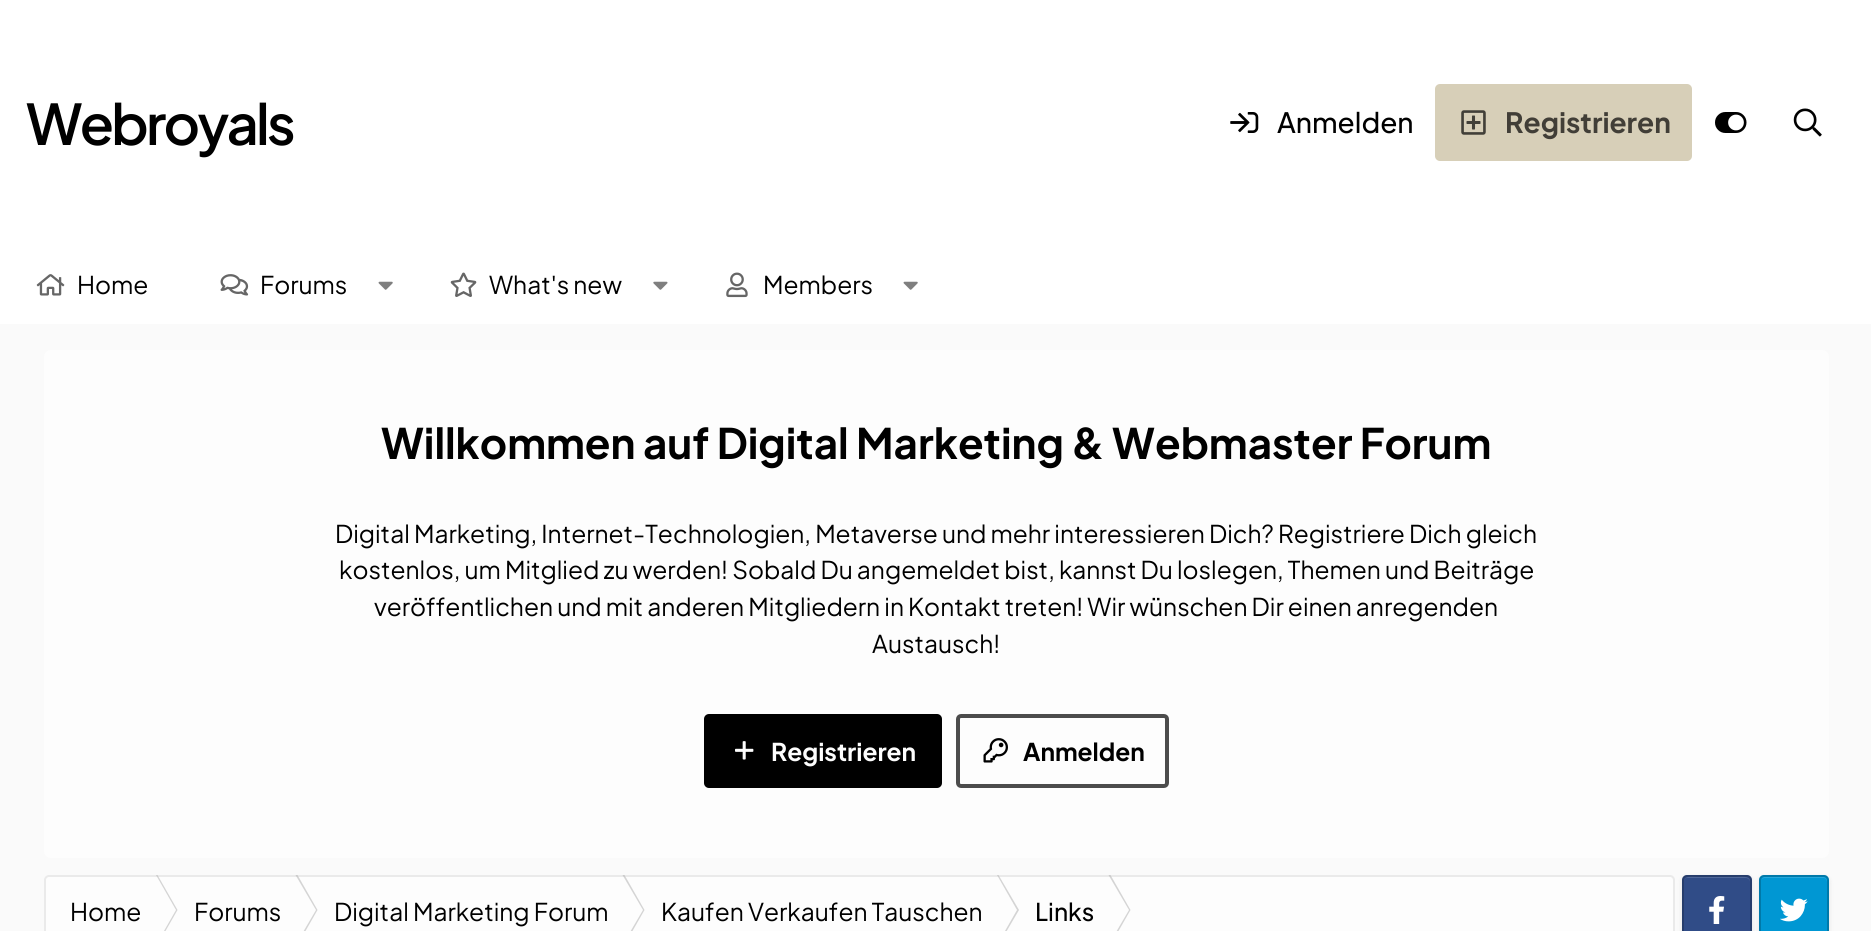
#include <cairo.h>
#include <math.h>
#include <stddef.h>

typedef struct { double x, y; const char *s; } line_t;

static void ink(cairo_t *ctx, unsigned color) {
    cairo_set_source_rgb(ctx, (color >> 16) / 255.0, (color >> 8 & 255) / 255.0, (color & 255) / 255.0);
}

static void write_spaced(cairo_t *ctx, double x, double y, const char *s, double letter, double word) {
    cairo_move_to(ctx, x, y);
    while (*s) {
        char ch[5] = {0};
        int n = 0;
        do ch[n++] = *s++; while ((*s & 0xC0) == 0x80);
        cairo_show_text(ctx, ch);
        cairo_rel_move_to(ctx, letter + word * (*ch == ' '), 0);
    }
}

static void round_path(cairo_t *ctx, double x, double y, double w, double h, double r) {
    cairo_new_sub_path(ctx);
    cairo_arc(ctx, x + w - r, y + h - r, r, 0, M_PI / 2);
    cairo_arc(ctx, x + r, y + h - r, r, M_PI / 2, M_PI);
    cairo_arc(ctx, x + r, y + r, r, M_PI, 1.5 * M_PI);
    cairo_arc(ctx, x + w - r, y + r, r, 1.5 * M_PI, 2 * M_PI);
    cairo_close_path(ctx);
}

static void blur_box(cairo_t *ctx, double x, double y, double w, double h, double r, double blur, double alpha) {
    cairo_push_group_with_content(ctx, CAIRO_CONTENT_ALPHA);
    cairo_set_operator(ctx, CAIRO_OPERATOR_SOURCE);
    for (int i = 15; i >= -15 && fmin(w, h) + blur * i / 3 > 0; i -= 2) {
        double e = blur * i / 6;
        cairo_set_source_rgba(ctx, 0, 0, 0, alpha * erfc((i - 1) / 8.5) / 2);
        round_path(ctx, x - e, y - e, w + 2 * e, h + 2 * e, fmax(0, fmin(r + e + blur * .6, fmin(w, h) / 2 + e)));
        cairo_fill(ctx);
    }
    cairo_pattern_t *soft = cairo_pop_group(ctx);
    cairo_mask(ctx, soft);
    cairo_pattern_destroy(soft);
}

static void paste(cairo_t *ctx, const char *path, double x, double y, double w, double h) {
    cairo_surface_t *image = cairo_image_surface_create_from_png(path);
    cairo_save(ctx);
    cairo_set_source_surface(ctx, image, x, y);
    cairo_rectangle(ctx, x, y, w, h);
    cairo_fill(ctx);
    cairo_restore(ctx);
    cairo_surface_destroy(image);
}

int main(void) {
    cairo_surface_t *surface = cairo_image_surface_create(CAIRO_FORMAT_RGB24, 1871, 931);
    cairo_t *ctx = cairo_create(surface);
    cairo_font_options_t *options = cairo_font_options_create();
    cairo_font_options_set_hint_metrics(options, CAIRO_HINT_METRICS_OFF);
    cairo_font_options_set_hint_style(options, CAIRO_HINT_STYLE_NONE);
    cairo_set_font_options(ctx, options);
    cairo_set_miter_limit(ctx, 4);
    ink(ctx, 0xFAFAFA);
    cairo_paint(ctx);
    ink(ctx, 0xFFFFFF);
    cairo_rectangle(ctx, 0, 0, 1871, 324);
    cairo_fill(ctx);
    cairo_select_font_face(ctx, "Plus Jakarta Sans SemiBold", CAIRO_FONT_SLANT_NORMAL, CAIRO_FONT_WEIGHT_NORMAL);
    cairo_set_font_size(ctx, 56);
    ink(ctx, 0x000000);
    write_spaced(ctx, 26, 145, "Webroyals", -2.75, 0);
    paste(ctx, "media/1.png", 1230, 112, 29, 21);
    cairo_select_font_face(ctx, "Plus Jakarta Sans Medium", CAIRO_FONT_SLANT_NORMAL, CAIRO_FONT_WEIGHT_NORMAL);
    cairo_set_font_size(ctx, 28);
    cairo_move_to(ctx, 1277, 133);
    cairo_show_text(ctx, "Anmelden");
    ink(ctx, 0xD7CFB8);
    round_path(ctx, 1435, 84, 257, 77, 5);
    cairo_fill(ctx);
    paste(ctx, "media/2.png", 1461, 110, 25, 25);
    cairo_select_font_face(ctx, "Plus Jakarta Sans", CAIRO_FONT_SLANT_NORMAL, CAIRO_FONT_WEIGHT_BOLD);
    ink(ctx, 0x413E37);
    cairo_move_to(ctx, 1505, 133);
    cairo_show_text(ctx, "Registrieren");
    paste(ctx, "media/3.png", 1715, 112, 32, 21);
    paste(ctx, "media/4.png", 1793, 108, 29, 29);
    paste(ctx, "media/5.png", 36, 274, 29, 22);
    cairo_select_font_face(ctx, "Plus Jakarta Sans", CAIRO_FONT_SLANT_NORMAL, CAIRO_FONT_WEIGHT_NORMAL);
    cairo_set_font_size(ctx, 24.5);
    ink(ctx, 0x000000);
    cairo_move_to(ctx, 77, 294);
    cairo_show_text(ctx, "Home");
    paste(ctx, "media/6.png", 220, 274, 29, 22);
    cairo_move_to(ctx, 260, 294);
    cairo_show_text(ctx, "Forums");
    paste(ctx, "media/7.png", 378, 281, 15, 9);
    paste(ctx, "media/8.png", 450, 272, 27, 25);
    cairo_move_to(ctx, 489, 294);
    cairo_show_text(ctx, "What's new");
    paste(ctx, "media/9.png", 653, 281, 15, 9);
    paste(ctx, "media/10.png", 726, 272, 22, 26);
    cairo_move_to(ctx, 763, 294);
    cairo_show_text(ctx, "Members");
    paste(ctx, "media/7.png", 903, 281, 15, 9);
    ink(ctx, 0xFDFDFD);
    round_path(ctx, 44, 350, 1785, 508, 7);
    cairo_fill(ctx);
    cairo_select_font_face(ctx, "Plus Jakarta Sans", CAIRO_FONT_SLANT_NORMAL, CAIRO_FONT_WEIGHT_BOLD);
    cairo_set_font_size(ctx, 42);
    ink(ctx, 0x000000);
    cairo_move_to(ctx, 381, 459);
    cairo_show_text(ctx, "Willkommen auf Digital Marketing & Webmaster Forum");
    cairo_select_font_face(ctx, "Plus Jakarta Sans", CAIRO_FONT_SLANT_NORMAL, CAIRO_FONT_WEIGHT_NORMAL);
    cairo_set_font_size(ctx, 24.5);
    {
        static const line_t items[] = {
            {335, 543, "Digital Marketing, Internet-Technologien, Metaverse und mehr interessieren Dich? Registriere Dich gleich"},
            {339, 579, "kostenlos, um Mitglied zu werden! Sobald Du angemeldet bist, kannst Du loslegen, Themen und Beiträge"},
            {374, 616, "veröffentlichen und mit anderen Mitgliedern in Kontakt treten! Wir wünschen Dir einen anregenden"},
            {872, 653, "Austausch!"},
        };
        for (size_t i = 0; i < sizeof items / sizeof *items; i++) {
            cairo_move_to(ctx, items[i].x, items[i].y);
            cairo_show_text(ctx, items[i].s);
        }
    }
    round_path(ctx, 704, 714, 238, 74, 5);
    cairo_fill(ctx);
    paste(ctx, "media/11.png", 735, 741, 19, 19);
    cairo_select_font_face(ctx, "Plus Jakarta Sans", CAIRO_FONT_SLANT_NORMAL, CAIRO_FONT_WEIGHT_BOLD);
    ink(ctx, 0xFDFDFD);
    cairo_move_to(ctx, 771, 761);
    cairo_show_text(ctx, "Registrieren");
    round_path(ctx, 958, 716, 209, 70, 3);
    ink(ctx, 0x4C4C4C);
    cairo_set_line_width(ctx, 4);
    cairo_stroke(ctx);
    paste(ctx, "media/12.png", 983, 738, 25, 25);
    ink(ctx, 0x000000);
    cairo_move_to(ctx, 1023, 761);
    cairo_show_text(ctx, "Anmelden");
    ink(ctx, 0xFDFDFD);
    round_path(ctx, 44, 875, 1631, 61, 5);
    cairo_fill(ctx);
    ink(ctx, 0xD4D4D4);
    cairo_new_path(ctx);
    cairo_move_to(ctx, 156, 875);
    cairo_line_to(ctx, 157.5, 875);
    cairo_line_to(ctx, 177.5, 910);
    cairo_line_to(ctx, 176, 910);
    cairo_close_path(ctx);
    cairo_move_to(ctx, 176, 910);
    cairo_line_to(ctx, 177.5, 910);
    cairo_line_to(ctx, 157.5, 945);
    cairo_line_to(ctx, 156, 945);
    cairo_close_path(ctx);
    cairo_fill(ctx);
    cairo_new_path(ctx);
    cairo_move_to(ctx, 295.5, 875);
    cairo_line_to(ctx, 297.5, 875);
    cairo_line_to(ctx, 317.5, 910);
    cairo_line_to(ctx, 316, 910);
    cairo_close_path(ctx);
    cairo_move_to(ctx, 316, 910);
    cairo_line_to(ctx, 317.5, 910);
    cairo_line_to(ctx, 297.5, 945);
    cairo_line_to(ctx, 295.5, 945);
    cairo_close_path(ctx);
    cairo_fill(ctx);
    cairo_new_path(ctx);
    cairo_move_to(ctx, 622.5, 875);
    cairo_line_to(ctx, 624.5, 875);
    cairo_line_to(ctx, 644.5, 910);
    cairo_line_to(ctx, 643, 910);
    cairo_close_path(ctx);
    cairo_move_to(ctx, 643, 910);
    cairo_line_to(ctx, 644.5, 910);
    cairo_line_to(ctx, 624.5, 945);
    cairo_line_to(ctx, 622.5, 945);
    cairo_close_path(ctx);
    cairo_fill(ctx);
    cairo_new_path(ctx);
    cairo_move_to(ctx, 997, 875);
    cairo_line_to(ctx, 998.5, 875);
    cairo_line_to(ctx, 1019, 910);
    cairo_line_to(ctx, 1017, 910);
    cairo_close_path(ctx);
    cairo_move_to(ctx, 1017, 910);
    cairo_line_to(ctx, 1019, 910);
    cairo_line_to(ctx, 998.5, 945);
    cairo_line_to(ctx, 997, 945);
    cairo_close_path(ctx);
    cairo_fill(ctx);
    cairo_new_path(ctx);
    cairo_move_to(ctx, 1108.5, 875);
    cairo_line_to(ctx, 1110.5, 875);
    cairo_line_to(ctx, 1130.5, 910);
    cairo_line_to(ctx, 1129, 910);
    cairo_close_path(ctx);
    cairo_move_to(ctx, 1129, 910);
    cairo_line_to(ctx, 1130.5, 910);
    cairo_line_to(ctx, 1110.5, 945);
    cairo_line_to(ctx, 1108.5, 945);
    cairo_close_path(ctx);
    cairo_fill(ctx);
    round_path(ctx, 45, 876, 1629, 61, 4);
    cairo_set_source_rgba(ctx, 0.694, 0.694, 0.694, 0.25);
    cairo_set_line_width(ctx, 2);
    cairo_stroke(ctx);
    cairo_select_font_face(ctx, "Plus Jakarta Sans", CAIRO_FONT_SLANT_NORMAL, CAIRO_FONT_WEIGHT_NORMAL);
    ink(ctx, 0x000000);
    {
        static const line_t items[] = {
            {70, 921, "Home"},
            {194, 921, "Forums"},
            {334, 921, "Digital Marketing Forum"},
            {661, 921, "Kaufen Verkaufen Tauschen"},
        };
        for (size_t i = 0; i < sizeof items / sizeof *items; i++) {
            cairo_move_to(ctx, items[i].x, items[i].y);
            cairo_show_text(ctx, items[i].s);
        }
    }
    cairo_select_font_face(ctx, "Plus Jakarta Sans Medium", CAIRO_FONT_SLANT_NORMAL, CAIRO_FONT_WEIGHT_NORMAL);
    cairo_move_to(ctx, 1035, 921);
    cairo_show_text(ctx, "Links");
    ink(ctx, 0x000000);
    blur_box(ctx, 1682, 877, 70, 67, 5, 2.5, 0.1);
    ink(ctx, 0x304C87);
    round_path(ctx, 1682, 875, 70, 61, 5);
    cairo_fill(ctx);
    ink(ctx, 0x4F6799);
    cairo_new_path(ctx);
    cairo_move_to(ctx, 1687, 878);
    cairo_line_to(ctx, 1746, 878);
    cairo_curve_to(ctx, 1748, 878, 1750, 880, 1750, 882);
    cairo_curve_to(ctx, 1750, 875, 1741, 877, 1736, 877);
    cairo_line_to(ctx, 1698, 877);
    cairo_curve_to(ctx, 1693, 877, 1684, 875, 1684, 882);
    cairo_curve_to(ctx, 1684, 880, 1685, 878, 1687, 878);
    cairo_close_path(ctx);
    cairo_fill(ctx);
    paste(ctx, "media/13.png", 1709, 896, 16, 28);
    round_path(ctx, 1683, 876, 68, 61, 4);
    cairo_set_source_rgba(ctx, 0, 0, 0, 0.2);
    cairo_stroke(ctx);
    ink(ctx, 0x000000);
    blur_box(ctx, 1759, 877, 70, 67, 5, 2.5, 0.1);
    ink(ctx, 0x0097D3);
    round_path(ctx, 1759, 875, 70, 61, 5);
    cairo_fill(ctx);
    ink(ctx, 0x26A7DA);
    cairo_new_path(ctx);
    cairo_move_to(ctx, 1764, 878);
    cairo_line_to(ctx, 1824, 878);
    cairo_curve_to(ctx, 1825, 878, 1827, 880, 1827, 882);
    cairo_line_to(ctx, 1827, 881);
    cairo_curve_to(ctx, 1827, 879, 1825, 877, 1823, 877);
    cairo_line_to(ctx, 1765, 877);
    cairo_curve_to(ctx, 1764, 877, 1762, 878, 1762, 879);
    cairo_close_path(ctx);
    cairo_fill(ctx);
    paste(ctx, "media/14.png", 1780, 898, 28, 24);
    round_path(ctx, 1760, 876, 68, 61, 4);
    cairo_set_source_rgba(ctx, 0, 0, 0, 0.2);
    cairo_stroke(ctx);
    cairo_surface_write_to_png(surface, "image.png");
    cairo_font_options_destroy(options);
    cairo_destroy(ctx);
    cairo_surface_destroy(surface);
    return 0;
}
